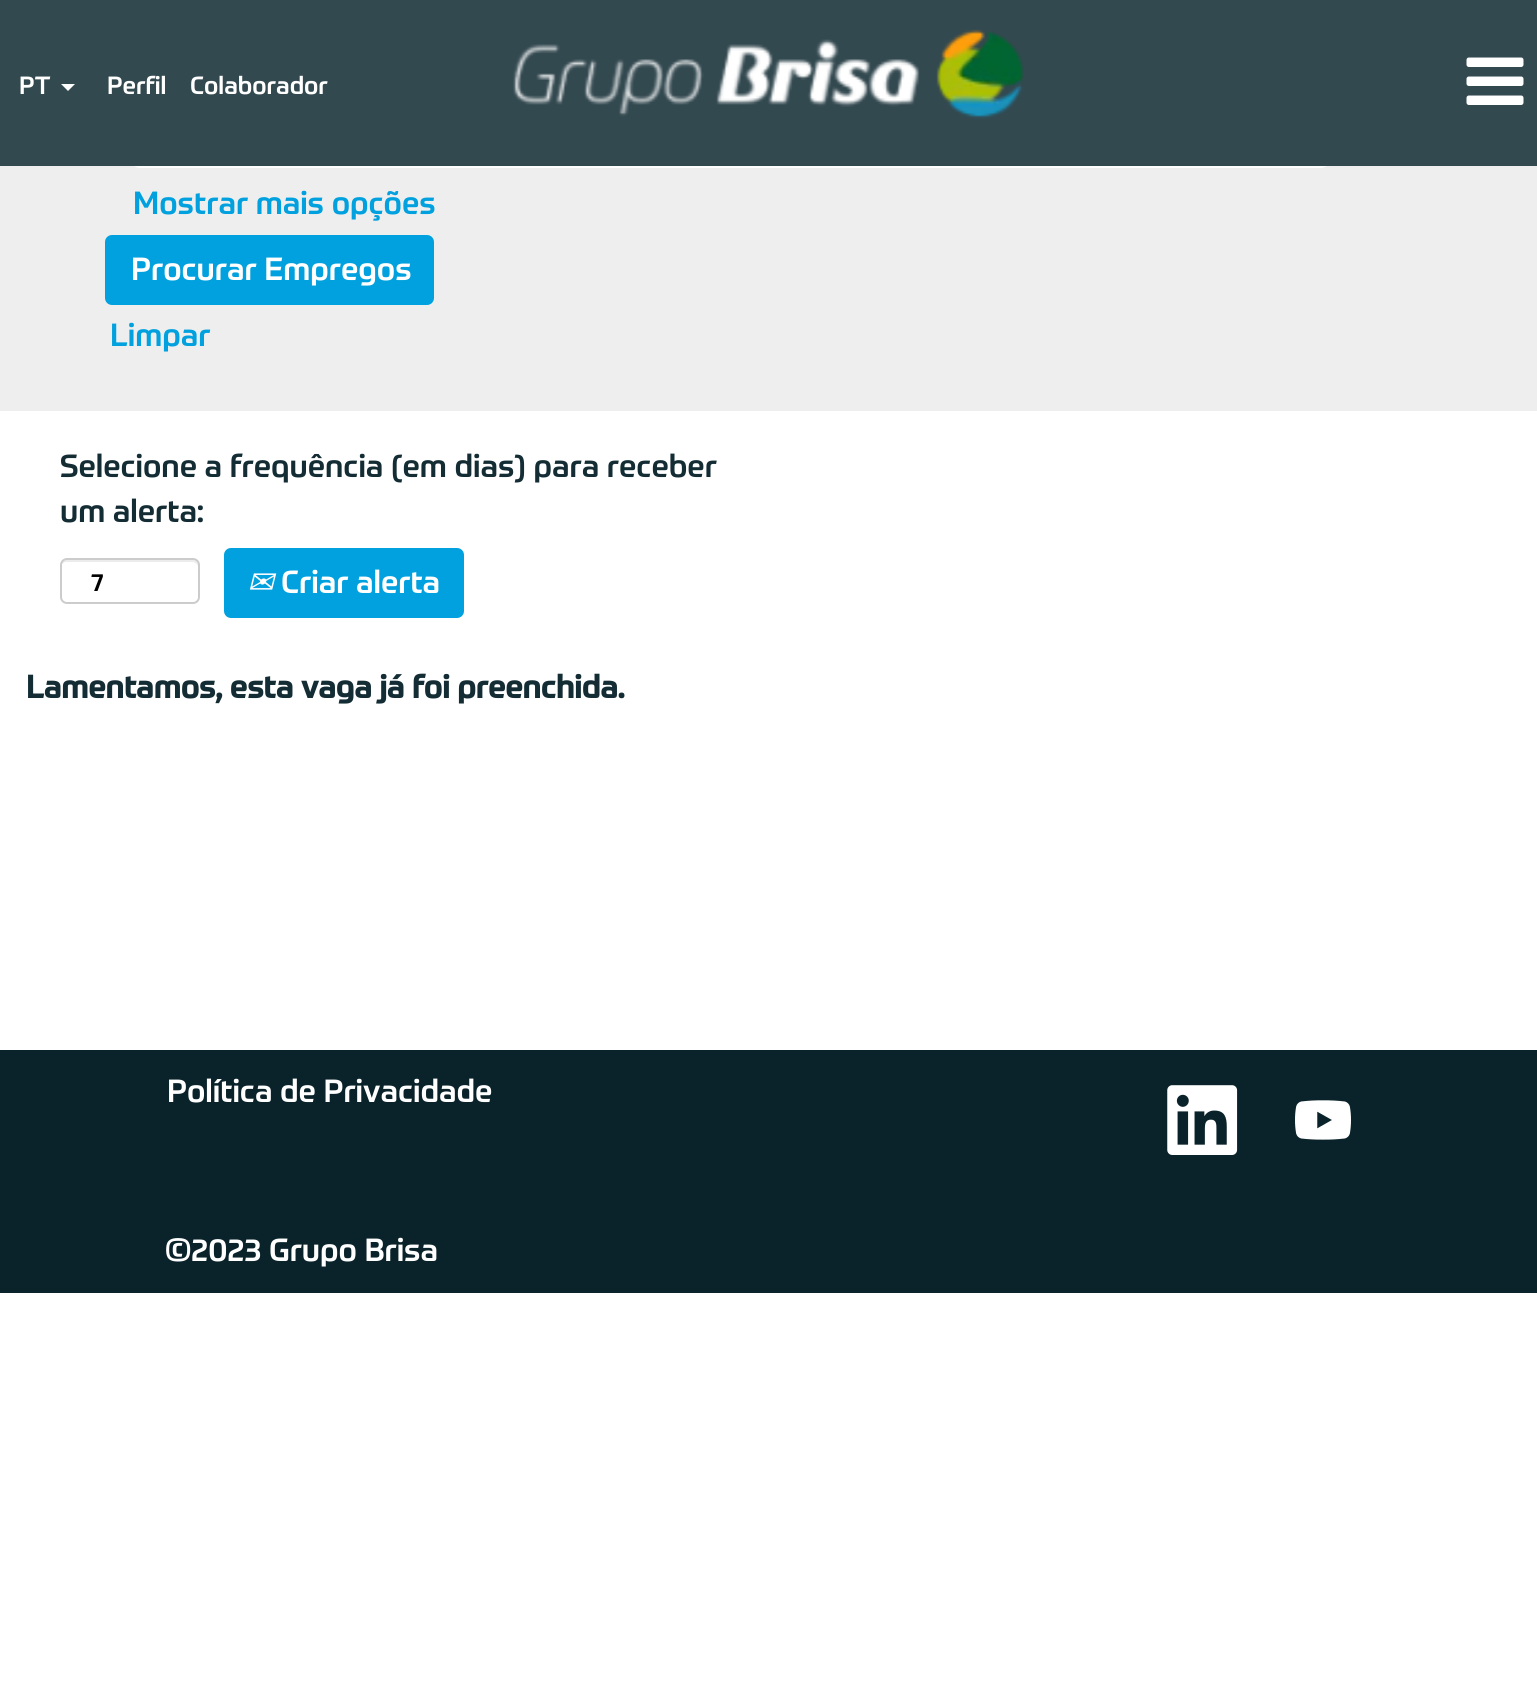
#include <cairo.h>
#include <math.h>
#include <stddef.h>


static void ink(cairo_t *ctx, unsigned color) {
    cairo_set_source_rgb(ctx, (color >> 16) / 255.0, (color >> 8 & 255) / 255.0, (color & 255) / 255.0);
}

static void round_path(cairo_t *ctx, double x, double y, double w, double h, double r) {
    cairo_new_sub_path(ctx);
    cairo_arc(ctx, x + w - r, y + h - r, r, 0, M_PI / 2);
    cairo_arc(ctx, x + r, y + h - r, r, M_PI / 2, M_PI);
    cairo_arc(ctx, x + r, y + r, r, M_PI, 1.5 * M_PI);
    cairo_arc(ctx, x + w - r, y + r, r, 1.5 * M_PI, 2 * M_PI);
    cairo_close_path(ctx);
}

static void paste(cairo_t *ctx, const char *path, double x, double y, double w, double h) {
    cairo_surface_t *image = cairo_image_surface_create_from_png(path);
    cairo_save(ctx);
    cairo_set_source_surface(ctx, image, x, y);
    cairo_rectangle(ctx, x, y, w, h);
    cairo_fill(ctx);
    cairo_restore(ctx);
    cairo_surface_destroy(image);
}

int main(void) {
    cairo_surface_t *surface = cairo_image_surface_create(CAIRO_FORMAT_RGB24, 1537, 1684);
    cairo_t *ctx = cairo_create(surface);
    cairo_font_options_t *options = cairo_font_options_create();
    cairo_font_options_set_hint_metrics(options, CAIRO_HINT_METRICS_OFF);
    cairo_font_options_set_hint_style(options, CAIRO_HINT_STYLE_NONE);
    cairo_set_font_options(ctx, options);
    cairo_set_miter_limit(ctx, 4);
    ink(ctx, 0xFFFFFF);
    cairo_paint(ctx);
    ink(ctx, 0xEFEEEE);
    cairo_rectangle(ctx, 0, 166, 1537, 245);
    cairo_fill(ctx);
    ink(ctx, 0xFFFFFF);
    round_path(ctx, 131, 117, 1199, 51, 9);
    cairo_fill(ctx);
    ink(ctx, 0x334950);
    cairo_rectangle(ctx, 0, 0, 1537, 166);
    cairo_fill(ctx);
    cairo_select_font_face(ctx, "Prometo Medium", CAIRO_FONT_SLANT_NORMAL, CAIRO_FONT_WEIGHT_NORMAL);
    cairo_set_font_size(ctx, 24.5);
    ink(ctx, 0xFFFFFF);
    cairo_move_to(ctx, 19, 94);
    cairo_show_text(ctx, "PT");
    cairo_new_path(ctx);
    cairo_move_to(ctx, 61, 84);
    cairo_line_to(ctx, 75, 84);
    cairo_line_to(ctx, 68, 91);
    cairo_close_path(ctx);
    cairo_fill(ctx);
    cairo_move_to(ctx, 107, 94);
    cairo_show_text(ctx, "Perfil");
    cairo_move_to(ctx, 190, 94);
    cairo_show_text(ctx, "Colaborador");
    paste(ctx, "media/1.png", 513, 29, 511, 90);
    paste(ctx, "media/2.png", 1466, 57, 58, 48);
    cairo_set_font_size(ctx, 31.5);
    ink(ctx, 0x00A1DE);
    cairo_move_to(ctx, 133, 214);
    cairo_show_text(ctx, "Mostrar mais opções");
    round_path(ctx, 105, 235, 329, 70, 7);
    cairo_fill(ctx);
    ink(ctx, 0xFFFFFF);
    cairo_move_to(ctx, 131, 280);
    cairo_show_text(ctx, "Procurar Empregos");
    ink(ctx, 0x00A1DE);
    cairo_move_to(ctx, 110, 346);
    cairo_show_text(ctx, "Limpar");
    ink(ctx, 0x142D35);
    cairo_move_to(ctx, 60, 477);
    cairo_show_text(ctx, "Selecione a frequência (em dias) para receber");
    cairo_move_to(ctx, 60, 522);
    cairo_show_text(ctx, "um alerta:");
    ink(ctx, 0xECECEC);
    cairo_new_path(ctx);
    cairo_move_to(ctx, 66, 562);
    cairo_line_to(ctx, 192, 562);
    cairo_curve_to(ctx, 195, 562, 198, 564, 198, 567);
    cairo_line_to(ctx, 198, 565);
    cairo_curve_to(ctx, 198, 562, 196, 560, 193, 560);
    cairo_line_to(ctx, 66, 560);
    cairo_curve_to(ctx, 63, 560, 61, 562, 61, 565);
    cairo_line_to(ctx, 61, 567);
    cairo_curve_to(ctx, 61, 564, 64, 562, 66, 562);
    cairo_close_path(ctx);
    cairo_fill(ctx);
    round_path(ctx, 61, 559, 138, 44, 6);
    ink(ctx, 0xCCCCCC);
    cairo_stroke(ctx);
    cairo_set_font_size(ctx, 24.5);
    ink(ctx, 0x000000);
    cairo_move_to(ctx, 91, 591);
    cairo_show_text(ctx, "7");
    ink(ctx, 0x00A1DE);
    round_path(ctx, 224, 548, 240, 70, 7);
    cairo_fill(ctx);
    cairo_select_font_face(ctx, "DejaVu Sans", CAIRO_FONT_SLANT_ITALIC, CAIRO_FONT_WEIGHT_NORMAL);
    cairo_set_font_size(ctx, 31.5);
    ink(ctx, 0xFFFFFF);
    cairo_move_to(ctx, 247, 593);
    cairo_show_text(ctx, "✉");
    cairo_select_font_face(ctx, "Prometo Medium", CAIRO_FONT_SLANT_NORMAL, CAIRO_FONT_WEIGHT_NORMAL);
    cairo_move_to(ctx, 281, 593);
    cairo_show_text(ctx, "Criar alerta");
    cairo_select_font_face(ctx, "Prometo", CAIRO_FONT_SLANT_NORMAL, CAIRO_FONT_WEIGHT_BOLD);
    ink(ctx, 0x142D35);
    cairo_move_to(ctx, 26, 698);
    cairo_show_text(ctx, "Lamentamos, esta vaga já foi preenchida.");
    ink(ctx, 0x0A232B);
    cairo_rectangle(ctx, 0, 1050, 1537, 243);
    cairo_fill(ctx);
    cairo_select_font_face(ctx, "Prometo Medium", CAIRO_FONT_SLANT_NORMAL, CAIRO_FONT_WEIGHT_NORMAL);
    ink(ctx, 0xFFFFFF);
    cairo_move_to(ctx, 167, 1102);
    cairo_show_text(ctx, "Política de Privacidade");
    paste(ctx, "media/3.png", 1167, 1085, 71, 70);
    paste(ctx, "media/4.png", 1295, 1100, 56, 40);
    cairo_move_to(ctx, 165, 1261);
    cairo_show_text(ctx, "©2023 Grupo Brisa");
    cairo_surface_write_to_png(surface, "image.png");
    cairo_font_options_destroy(options);
    cairo_destroy(ctx);
    cairo_surface_destroy(surface);
    return 0;
}
